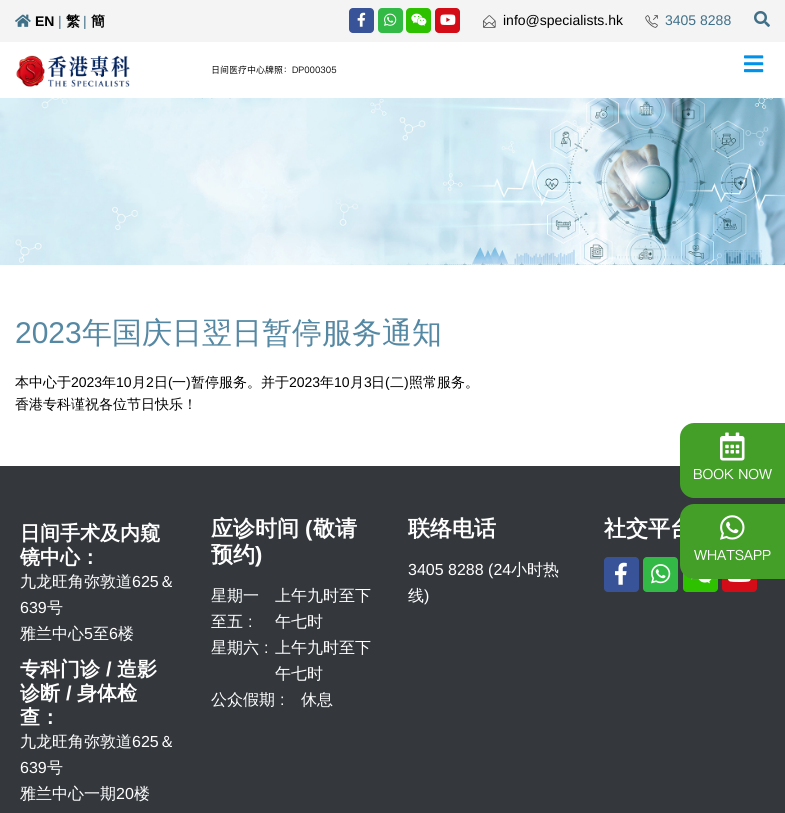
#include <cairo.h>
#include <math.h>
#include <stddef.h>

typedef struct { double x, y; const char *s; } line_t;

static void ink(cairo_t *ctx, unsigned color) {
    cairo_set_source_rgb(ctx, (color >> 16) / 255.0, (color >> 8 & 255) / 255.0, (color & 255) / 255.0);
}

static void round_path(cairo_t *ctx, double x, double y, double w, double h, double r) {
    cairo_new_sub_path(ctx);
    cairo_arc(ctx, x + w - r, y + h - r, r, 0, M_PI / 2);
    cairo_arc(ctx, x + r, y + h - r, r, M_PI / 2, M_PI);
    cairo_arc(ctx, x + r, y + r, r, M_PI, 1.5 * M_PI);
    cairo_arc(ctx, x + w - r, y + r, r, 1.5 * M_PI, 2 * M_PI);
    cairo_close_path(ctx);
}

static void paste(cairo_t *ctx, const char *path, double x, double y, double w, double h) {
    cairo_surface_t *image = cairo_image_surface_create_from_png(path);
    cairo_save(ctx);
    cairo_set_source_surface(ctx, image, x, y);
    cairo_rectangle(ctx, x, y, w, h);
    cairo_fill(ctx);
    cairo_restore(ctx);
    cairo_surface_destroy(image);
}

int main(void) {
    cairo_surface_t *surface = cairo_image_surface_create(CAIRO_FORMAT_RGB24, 785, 813);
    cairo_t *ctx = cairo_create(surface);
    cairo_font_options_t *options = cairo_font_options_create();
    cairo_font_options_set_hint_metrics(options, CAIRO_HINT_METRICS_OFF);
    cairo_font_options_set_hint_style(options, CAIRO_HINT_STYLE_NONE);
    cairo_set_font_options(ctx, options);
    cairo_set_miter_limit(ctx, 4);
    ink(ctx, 0xFFFFFF);
    cairo_paint(ctx);
    ink(ctx, 0xF4F4F4);
    cairo_rectangle(ctx, 0, 0, 785, 42);
    cairo_fill(ctx);
    paste(ctx, "media/1.png", 15, 14, 16, 13);
    cairo_select_font_face(ctx, "Liberation Sans", CAIRO_FONT_SLANT_NORMAL, CAIRO_FONT_WEIGHT_BOLD);
    cairo_set_font_size(ctx, 14);
    ink(ctx, 0x000000);
    cairo_move_to(ctx, 35, 26);
    cairo_show_text(ctx, "EN");
    cairo_select_font_face(ctx, "Liberation Sans", CAIRO_FONT_SLANT_NORMAL, CAIRO_FONT_WEIGHT_NORMAL);
    ink(ctx, 0x407088);
    cairo_move_to(ctx, 58, 26);
    cairo_show_text(ctx, "|");
    cairo_select_font_face(ctx, "WenQuanYi Zen Hei", CAIRO_FONT_SLANT_NORMAL, CAIRO_FONT_WEIGHT_BOLD);
    ink(ctx, 0x000000);
    cairo_move_to(ctx, 66, 26);
    cairo_show_text(ctx, "繁");
    cairo_select_font_face(ctx, "Liberation Sans", CAIRO_FONT_SLANT_NORMAL, CAIRO_FONT_WEIGHT_NORMAL);
    ink(ctx, 0x407088);
    cairo_move_to(ctx, 83, 26);
    cairo_show_text(ctx, "|");
    cairo_select_font_face(ctx, "WenQuanYi Zen Hei", CAIRO_FONT_SLANT_NORMAL, CAIRO_FONT_WEIGHT_BOLD);
    ink(ctx, 0x000000);
    cairo_move_to(ctx, 91, 26);
    cairo_show_text(ctx, "簡");
    ink(ctx, 0x395398);
    round_path(ctx, 349, 8, 25, 25, 4);
    cairo_fill(ctx);
    paste(ctx, "media/2.png", 357, 12, 9, 15);
    ink(ctx, 0x33BA46);
    round_path(ctx, 378, 8, 25, 25, 4);
    cairo_fill(ctx);
    paste(ctx, "media/3.png", 384, 13, 13, 13);
    ink(ctx, 0x2DC100);
    round_path(ctx, 406, 8, 25, 25, 4);
    cairo_fill(ctx);
    paste(ctx, "media/4.png", 411, 13, 16, 13);
    ink(ctx, 0xD40C18);
    round_path(ctx, 435, 8, 25, 25, 4);
    cairo_fill(ctx);
    paste(ctx, "media/5.png", 440, 14, 16, 11);
    paste(ctx, "media/6.png", 483, 15, 13, 13);
    cairo_select_font_face(ctx, "Liberation Sans", CAIRO_FONT_SLANT_NORMAL, CAIRO_FONT_WEIGHT_NORMAL);
    ink(ctx, 0x000000);
    cairo_move_to(ctx, 503, 25);
    cairo_show_text(ctx, "info@specialists.hk");
    paste(ctx, "media/7.png", 645, 15, 13, 13);
    ink(ctx, 0x407088);
    cairo_move_to(ctx, 665, 25);
    cairo_show_text(ctx, "3405 8288");
    paste(ctx, "media/8.png", 754, 11, 16, 16);
    paste(ctx, "media/9.png", 16, 55, 114, 32);
    cairo_select_font_face(ctx, "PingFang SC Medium", CAIRO_FONT_SLANT_NORMAL, CAIRO_FONT_WEIGHT_NORMAL);
    cairo_set_font_size(ctx, 9);
    ink(ctx, 0x000000);
    cairo_move_to(ctx, 211, 73);
    cairo_show_text(ctx, "日间医疗中心牌照：DP000305");
    paste(ctx, "media/10.png", 744, 55, 20, 18);
    paste(ctx, "media/11.png", 0, 98, 785, 167);
    cairo_select_font_face(ctx, "Liberation Sans", CAIRO_FONT_SLANT_NORMAL, CAIRO_FONT_WEIGHT_NORMAL);
    cairo_set_font_size(ctx, 30);
    ink(ctx, 0x5588A3);
    cairo_move_to(ctx, 15, 343);
    cairo_show_text(ctx, "2023");
    cairo_select_font_face(ctx, "WenQuanYi Zen Hei Medium", CAIRO_FONT_SLANT_NORMAL, CAIRO_FONT_WEIGHT_NORMAL);
    cairo_move_to(ctx, 82, 343);
    cairo_show_text(ctx, "年国庆日翌日暂停服务通知");
    cairo_set_font_size(ctx, 14);
    ink(ctx, 0x000000);
    cairo_move_to(ctx, 15, 387);
    cairo_show_text(ctx, "本中心于");
    cairo_select_font_face(ctx, "Liberation Sans", CAIRO_FONT_SLANT_NORMAL, CAIRO_FONT_WEIGHT_NORMAL);
    cairo_move_to(ctx, 71, 387);
    cairo_show_text(ctx, "2023");
    cairo_select_font_face(ctx, "WenQuanYi Zen Hei Medium", CAIRO_FONT_SLANT_NORMAL, CAIRO_FONT_WEIGHT_NORMAL);
    cairo_move_to(ctx, 102, 387);
    cairo_show_text(ctx, "年");
    cairo_select_font_face(ctx, "Liberation Sans", CAIRO_FONT_SLANT_NORMAL, CAIRO_FONT_WEIGHT_NORMAL);
    cairo_move_to(ctx, 116, 387);
    cairo_show_text(ctx, "10");
    cairo_select_font_face(ctx, "WenQuanYi Zen Hei Medium", CAIRO_FONT_SLANT_NORMAL, CAIRO_FONT_WEIGHT_NORMAL);
    cairo_move_to(ctx, 132, 387);
    cairo_show_text(ctx, "月");
    cairo_select_font_face(ctx, "Liberation Sans", CAIRO_FONT_SLANT_NORMAL, CAIRO_FONT_WEIGHT_NORMAL);
    cairo_move_to(ctx, 146, 387);
    cairo_show_text(ctx, "2");
    cairo_select_font_face(ctx, "WenQuanYi Zen Hei Medium", CAIRO_FONT_SLANT_NORMAL, CAIRO_FONT_WEIGHT_NORMAL);
    cairo_move_to(ctx, 154, 387);
    cairo_show_text(ctx, "日");
    cairo_select_font_face(ctx, "Liberation Sans", CAIRO_FONT_SLANT_NORMAL, CAIRO_FONT_WEIGHT_NORMAL);
    cairo_move_to(ctx, 168, 387);
    cairo_show_text(ctx, "(");
    cairo_select_font_face(ctx, "WenQuanYi Zen Hei Medium", CAIRO_FONT_SLANT_NORMAL, CAIRO_FONT_WEIGHT_NORMAL);
    cairo_move_to(ctx, 172, 387);
    cairo_show_text(ctx, "一");
    cairo_select_font_face(ctx, "Liberation Sans", CAIRO_FONT_SLANT_NORMAL, CAIRO_FONT_WEIGHT_NORMAL);
    cairo_move_to(ctx, 186, 387);
    cairo_show_text(ctx, ")");
    cairo_select_font_face(ctx, "WenQuanYi Zen Hei Medium", CAIRO_FONT_SLANT_NORMAL, CAIRO_FONT_WEIGHT_NORMAL);
    cairo_move_to(ctx, 191, 387);
    cairo_show_text(ctx, "暂停服务。并于");
    cairo_select_font_face(ctx, "Liberation Sans", CAIRO_FONT_SLANT_NORMAL, CAIRO_FONT_WEIGHT_NORMAL);
    cairo_move_to(ctx, 289, 387);
    cairo_show_text(ctx, "2023");
    cairo_select_font_face(ctx, "WenQuanYi Zen Hei Medium", CAIRO_FONT_SLANT_NORMAL, CAIRO_FONT_WEIGHT_NORMAL);
    cairo_move_to(ctx, 320, 387);
    cairo_show_text(ctx, "年");
    cairo_select_font_face(ctx, "Liberation Sans", CAIRO_FONT_SLANT_NORMAL, CAIRO_FONT_WEIGHT_NORMAL);
    cairo_move_to(ctx, 334, 387);
    cairo_show_text(ctx, "10");
    cairo_select_font_face(ctx, "WenQuanYi Zen Hei Medium", CAIRO_FONT_SLANT_NORMAL, CAIRO_FONT_WEIGHT_NORMAL);
    cairo_move_to(ctx, 350, 387);
    cairo_show_text(ctx, "月");
    cairo_select_font_face(ctx, "Liberation Sans", CAIRO_FONT_SLANT_NORMAL, CAIRO_FONT_WEIGHT_NORMAL);
    cairo_move_to(ctx, 364, 387);
    cairo_show_text(ctx, "3");
    cairo_select_font_face(ctx, "WenQuanYi Zen Hei Medium", CAIRO_FONT_SLANT_NORMAL, CAIRO_FONT_WEIGHT_NORMAL);
    cairo_move_to(ctx, 371, 387);
    cairo_show_text(ctx, "日");
    cairo_select_font_face(ctx, "Liberation Sans", CAIRO_FONT_SLANT_NORMAL, CAIRO_FONT_WEIGHT_NORMAL);
    cairo_move_to(ctx, 385, 387);
    cairo_show_text(ctx, "(");
    cairo_select_font_face(ctx, "WenQuanYi Zen Hei Medium", CAIRO_FONT_SLANT_NORMAL, CAIRO_FONT_WEIGHT_NORMAL);
    cairo_move_to(ctx, 390, 387);
    cairo_show_text(ctx, "二");
    cairo_select_font_face(ctx, "Liberation Sans", CAIRO_FONT_SLANT_NORMAL, CAIRO_FONT_WEIGHT_NORMAL);
    cairo_move_to(ctx, 404, 387);
    cairo_show_text(ctx, ")");
    cairo_select_font_face(ctx, "WenQuanYi Zen Hei Medium", CAIRO_FONT_SLANT_NORMAL, CAIRO_FONT_WEIGHT_NORMAL);
    cairo_move_to(ctx, 409, 387);
    cairo_show_text(ctx, "照常服务。");
    cairo_move_to(ctx, 15, 409);
    cairo_show_text(ctx, "香港专科谨祝各位节日快乐！");
    ink(ctx, 0x34383D);
    cairo_rectangle(ctx, 0, 466, 785, 347);
    cairo_fill(ctx);
    cairo_select_font_face(ctx, "WenQuanYi Zen Hei", CAIRO_FONT_SLANT_NORMAL, CAIRO_FONT_WEIGHT_BOLD);
    cairo_set_font_size(ctx, 20);
    ink(ctx, 0xFFFFFF);
    cairo_move_to(ctx, 20, 540);
    cairo_show_text(ctx, "日间手术及内窥");
    cairo_move_to(ctx, 20, 564);
    cairo_show_text(ctx, "镜中心：");
    cairo_select_font_face(ctx, "WenQuanYi Zen Hei Medium", CAIRO_FONT_SLANT_NORMAL, CAIRO_FONT_WEIGHT_NORMAL);
    cairo_set_font_size(ctx, 16);
    cairo_move_to(ctx, 20, 587);
    cairo_show_text(ctx, "九龙旺角弥敦道");
    cairo_select_font_face(ctx, "Liberation Sans", CAIRO_FONT_SLANT_NORMAL, CAIRO_FONT_WEIGHT_NORMAL);
    cairo_move_to(ctx, 132, 587);
    cairo_show_text(ctx, "625");
    cairo_select_font_face(ctx, "WenQuanYi Zen Hei Medium", CAIRO_FONT_SLANT_NORMAL, CAIRO_FONT_WEIGHT_NORMAL);
    cairo_move_to(ctx, 159, 587);
    cairo_show_text(ctx, "＆");
    cairo_select_font_face(ctx, "Liberation Sans", CAIRO_FONT_SLANT_NORMAL, CAIRO_FONT_WEIGHT_NORMAL);
    cairo_move_to(ctx, 20, 613);
    cairo_show_text(ctx, "639");
    cairo_select_font_face(ctx, "WenQuanYi Zen Hei Medium", CAIRO_FONT_SLANT_NORMAL, CAIRO_FONT_WEIGHT_NORMAL);
    cairo_move_to(ctx, 47, 613);
    cairo_show_text(ctx, "号");
    cairo_move_to(ctx, 20, 639);
    cairo_show_text(ctx, "雅兰中心");
    cairo_select_font_face(ctx, "Liberation Sans", CAIRO_FONT_SLANT_NORMAL, CAIRO_FONT_WEIGHT_NORMAL);
    cairo_move_to(ctx, 84, 639);
    cairo_show_text(ctx, "5");
    cairo_select_font_face(ctx, "WenQuanYi Zen Hei Medium", CAIRO_FONT_SLANT_NORMAL, CAIRO_FONT_WEIGHT_NORMAL);
    cairo_move_to(ctx, 93, 639);
    cairo_show_text(ctx, "至");
    cairo_select_font_face(ctx, "Liberation Sans", CAIRO_FONT_SLANT_NORMAL, CAIRO_FONT_WEIGHT_NORMAL);
    cairo_move_to(ctx, 109, 639);
    cairo_show_text(ctx, "6");
    cairo_select_font_face(ctx, "WenQuanYi Zen Hei Medium", CAIRO_FONT_SLANT_NORMAL, CAIRO_FONT_WEIGHT_NORMAL);
    cairo_move_to(ctx, 118, 639);
    cairo_show_text(ctx, "楼");
    cairo_select_font_face(ctx, "WenQuanYi Zen Hei", CAIRO_FONT_SLANT_NORMAL, CAIRO_FONT_WEIGHT_BOLD);
    cairo_set_font_size(ctx, 20);
    cairo_move_to(ctx, 20, 676);
    cairo_show_text(ctx, "专科门诊");
    cairo_select_font_face(ctx, "Liberation Sans", CAIRO_FONT_SLANT_NORMAL, CAIRO_FONT_WEIGHT_BOLD);
    cairo_move_to(ctx, 106, 676);
    cairo_show_text(ctx, "/");
    cairo_select_font_face(ctx, "WenQuanYi Zen Hei", CAIRO_FONT_SLANT_NORMAL, CAIRO_FONT_WEIGHT_BOLD);
    cairo_move_to(ctx, 117, 676);
    cairo_show_text(ctx, "造影");
    cairo_move_to(ctx, 20, 700);
    cairo_show_text(ctx, "诊断");
    cairo_select_font_face(ctx, "Liberation Sans", CAIRO_FONT_SLANT_NORMAL, CAIRO_FONT_WEIGHT_BOLD);
    cairo_move_to(ctx, 66, 700);
    cairo_show_text(ctx, "/");
    cairo_select_font_face(ctx, "WenQuanYi Zen Hei", CAIRO_FONT_SLANT_NORMAL, CAIRO_FONT_WEIGHT_BOLD);
    cairo_move_to(ctx, 77, 700);
    cairo_show_text(ctx, "身体检");
    cairo_move_to(ctx, 20, 724);
    cairo_show_text(ctx, "查：");
    cairo_select_font_face(ctx, "WenQuanYi Zen Hei Medium", CAIRO_FONT_SLANT_NORMAL, CAIRO_FONT_WEIGHT_NORMAL);
    cairo_set_font_size(ctx, 16);
    cairo_move_to(ctx, 20, 747);
    cairo_show_text(ctx, "九龙旺角弥敦道");
    cairo_select_font_face(ctx, "Liberation Sans", CAIRO_FONT_SLANT_NORMAL, CAIRO_FONT_WEIGHT_NORMAL);
    cairo_move_to(ctx, 132, 747);
    cairo_show_text(ctx, "625");
    cairo_select_font_face(ctx, "WenQuanYi Zen Hei Medium", CAIRO_FONT_SLANT_NORMAL, CAIRO_FONT_WEIGHT_NORMAL);
    cairo_move_to(ctx, 159, 747);
    cairo_show_text(ctx, "＆");
    cairo_select_font_face(ctx, "Liberation Sans", CAIRO_FONT_SLANT_NORMAL, CAIRO_FONT_WEIGHT_NORMAL);
    cairo_move_to(ctx, 20, 773);
    cairo_show_text(ctx, "639");
    cairo_select_font_face(ctx, "WenQuanYi Zen Hei Medium", CAIRO_FONT_SLANT_NORMAL, CAIRO_FONT_WEIGHT_NORMAL);
    cairo_move_to(ctx, 47, 773);
    cairo_show_text(ctx, "号");
    cairo_move_to(ctx, 20, 799);
    cairo_show_text(ctx, "雅兰中心一期");
    cairo_select_font_face(ctx, "Liberation Sans", CAIRO_FONT_SLANT_NORMAL, CAIRO_FONT_WEIGHT_NORMAL);
    cairo_move_to(ctx, 116, 799);
    cairo_show_text(ctx, "20");
    cairo_select_font_face(ctx, "WenQuanYi Zen Hei Medium", CAIRO_FONT_SLANT_NORMAL, CAIRO_FONT_WEIGHT_NORMAL);
    cairo_move_to(ctx, 134, 799);
    cairo_show_text(ctx, "楼");
    cairo_select_font_face(ctx, "WenQuanYi Zen Hei", CAIRO_FONT_SLANT_NORMAL, CAIRO_FONT_WEIGHT_BOLD);
    cairo_set_font_size(ctx, 22);
    cairo_move_to(ctx, 211, 536);
    cairo_show_text(ctx, "应诊时间");
    cairo_select_font_face(ctx, "Liberation Sans", CAIRO_FONT_SLANT_NORMAL, CAIRO_FONT_WEIGHT_BOLD);
    cairo_move_to(ctx, 305, 536);
    cairo_show_text(ctx, "(");
    cairo_select_font_face(ctx, "WenQuanYi Zen Hei", CAIRO_FONT_SLANT_NORMAL, CAIRO_FONT_WEIGHT_BOLD);
    cairo_move_to(ctx, 313, 536);
    cairo_show_text(ctx, "敬请");
    cairo_move_to(ctx, 211, 562);
    cairo_show_text(ctx, "预约");
    cairo_select_font_face(ctx, "Liberation Sans", CAIRO_FONT_SLANT_NORMAL, CAIRO_FONT_WEIGHT_BOLD);
    cairo_move_to(ctx, 255, 562);
    cairo_show_text(ctx, ")");
    cairo_select_font_face(ctx, "WenQuanYi Zen Hei Medium", CAIRO_FONT_SLANT_NORMAL, CAIRO_FONT_WEIGHT_NORMAL);
    cairo_set_font_size(ctx, 16);
    cairo_move_to(ctx, 211, 601);
    cairo_show_text(ctx, "星期一");
    cairo_move_to(ctx, 211, 627);
    cairo_show_text(ctx, "至五");
    cairo_select_font_face(ctx, "Liberation Sans", CAIRO_FONT_SLANT_NORMAL, CAIRO_FONT_WEIGHT_NORMAL);
    cairo_move_to(ctx, 248, 627);
    cairo_show_text(ctx, ":");
    cairo_select_font_face(ctx, "WenQuanYi Zen Hei Medium", CAIRO_FONT_SLANT_NORMAL, CAIRO_FONT_WEIGHT_NORMAL);
    {
        static const line_t items[] = {
            {275, 601, "上午九时至下"},
            {275, 627, "午七时"},
            {211, 653, "星期六"},
        };
        for (size_t i = 0; i < sizeof items / sizeof *items; i++) {
            cairo_move_to(ctx, items[i].x, items[i].y);
            cairo_show_text(ctx, items[i].s);
        }
    }
    cairo_select_font_face(ctx, "Liberation Sans", CAIRO_FONT_SLANT_NORMAL, CAIRO_FONT_WEIGHT_NORMAL);
    cairo_move_to(ctx, 264, 653);
    cairo_show_text(ctx, ":");
    cairo_select_font_face(ctx, "WenQuanYi Zen Hei Medium", CAIRO_FONT_SLANT_NORMAL, CAIRO_FONT_WEIGHT_NORMAL);
    {
        static const line_t items[] = {
            {275, 653, "上午九时至下"},
            {275, 679, "午七时"},
            {211, 705, "公众假期"},
        };
        for (size_t i = 0; i < sizeof items / sizeof *items; i++) {
            cairo_move_to(ctx, items[i].x, items[i].y);
            cairo_show_text(ctx, items[i].s);
        }
    }
    cairo_select_font_face(ctx, "Liberation Sans", CAIRO_FONT_SLANT_NORMAL, CAIRO_FONT_WEIGHT_NORMAL);
    cairo_move_to(ctx, 280, 705);
    cairo_show_text(ctx, ":");
    cairo_select_font_face(ctx, "WenQuanYi Zen Hei Medium", CAIRO_FONT_SLANT_NORMAL, CAIRO_FONT_WEIGHT_NORMAL);
    cairo_move_to(ctx, 301, 705);
    cairo_show_text(ctx, "休息");
    cairo_select_font_face(ctx, "WenQuanYi Zen Hei", CAIRO_FONT_SLANT_NORMAL, CAIRO_FONT_WEIGHT_BOLD);
    cairo_set_font_size(ctx, 22);
    cairo_move_to(ctx, 408, 536);
    cairo_show_text(ctx, "联络电话");
    cairo_select_font_face(ctx, "Liberation Sans", CAIRO_FONT_SLANT_NORMAL, CAIRO_FONT_WEIGHT_NORMAL);
    cairo_set_font_size(ctx, 16);
    cairo_move_to(ctx, 408, 575);
    cairo_show_text(ctx, "3405 8288 (24");
    cairo_select_font_face(ctx, "WenQuanYi Zen Hei Medium", CAIRO_FONT_SLANT_NORMAL, CAIRO_FONT_WEIGHT_NORMAL);
    cairo_move_to(ctx, 511, 575);
    cairo_show_text(ctx, "小时热");
    cairo_move_to(ctx, 408, 601);
    cairo_show_text(ctx, "线");
    cairo_select_font_face(ctx, "Liberation Sans", CAIRO_FONT_SLANT_NORMAL, CAIRO_FONT_WEIGHT_NORMAL);
    cairo_move_to(ctx, 424, 601);
    cairo_show_text(ctx, ")");
    cairo_select_font_face(ctx, "WenQuanYi Zen Hei", CAIRO_FONT_SLANT_NORMAL, CAIRO_FONT_WEIGHT_BOLD);
    cairo_set_font_size(ctx, 22);
    cairo_move_to(ctx, 604, 536);
    cairo_show_text(ctx, "社交平台");
    ink(ctx, 0x395398);
    round_path(ctx, 604, 557, 35, 35, 4);
    cairo_fill(ctx);
    paste(ctx, "media/12.png", 615, 562, 12, 23);
    ink(ctx, 0x33BA46);
    round_path(ctx, 643, 557, 35, 35, 4);
    cairo_fill(ctx);
    paste(ctx, "media/13.png", 651, 564, 20, 20);
    ink(ctx, 0x2DC100);
    round_path(ctx, 683, 557, 35, 35, 4);
    cairo_fill(ctx);
    paste(ctx, "media/14.png", 691, 578, 21, 6);
    ink(ctx, 0xD40C18);
    round_path(ctx, 722, 557, 35, 35, 4);
    cairo_fill(ctx);
    paste(ctx, "media/15.png", 728, 579, 23, 3);
    ink(ctx, 0x449F28);
    cairo_new_path(ctx);
    cairo_move_to(ctx, 694, 423);
    cairo_line_to(ctx, 785, 423);
    cairo_line_to(ctx, 785, 498);
    cairo_line_to(ctx, 694, 498);
    cairo_curve_to(ctx, 686.5, 498, 680, 491.5, 680, 484);
    cairo_line_to(ctx, 680, 437);
    cairo_curve_to(ctx, 680, 429.5, 686.5, 423, 694, 423);
    cairo_close_path(ctx);
    cairo_fill(ctx);
    paste(ctx, "media/16.png", 720, 432, 25, 29);
    cairo_select_font_face(ctx, "PingFang SC Medium", CAIRO_FONT_SLANT_NORMAL, CAIRO_FONT_WEIGHT_NORMAL);
    cairo_set_font_size(ctx, 14);
    ink(ctx, 0xFFFFFF);
    cairo_move_to(ctx, 693, 479);
    cairo_show_text(ctx, "BOOK NOW");
    ink(ctx, 0x449F28);
    cairo_new_path(ctx);
    cairo_move_to(ctx, 694, 504);
    cairo_line_to(ctx, 785, 504);
    cairo_line_to(ctx, 785, 579);
    cairo_line_to(ctx, 694, 579);
    cairo_curve_to(ctx, 686.5, 579, 680, 572.5, 680, 565);
    cairo_line_to(ctx, 680, 518);
    cairo_curve_to(ctx, 680, 510.5, 686.5, 504, 694, 504);
    cairo_close_path(ctx);
    cairo_fill(ctx);
    paste(ctx, "media/17.png", 720, 515, 25, 25);
    ink(ctx, 0xFFFFFF);
    cairo_move_to(ctx, 694, 560);
    cairo_show_text(ctx, "WHATSAPP");
    cairo_surface_write_to_png(surface, "image.png");
    cairo_font_options_destroy(options);
    cairo_destroy(ctx);
    cairo_surface_destroy(surface);
    return 0;
}
